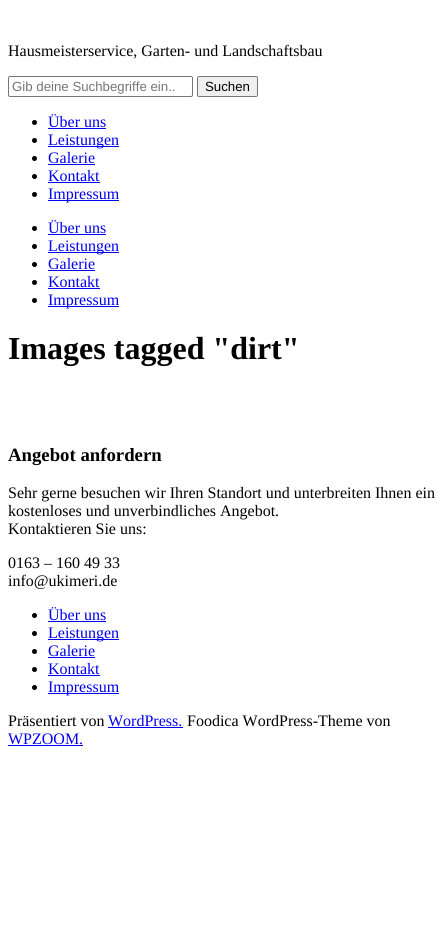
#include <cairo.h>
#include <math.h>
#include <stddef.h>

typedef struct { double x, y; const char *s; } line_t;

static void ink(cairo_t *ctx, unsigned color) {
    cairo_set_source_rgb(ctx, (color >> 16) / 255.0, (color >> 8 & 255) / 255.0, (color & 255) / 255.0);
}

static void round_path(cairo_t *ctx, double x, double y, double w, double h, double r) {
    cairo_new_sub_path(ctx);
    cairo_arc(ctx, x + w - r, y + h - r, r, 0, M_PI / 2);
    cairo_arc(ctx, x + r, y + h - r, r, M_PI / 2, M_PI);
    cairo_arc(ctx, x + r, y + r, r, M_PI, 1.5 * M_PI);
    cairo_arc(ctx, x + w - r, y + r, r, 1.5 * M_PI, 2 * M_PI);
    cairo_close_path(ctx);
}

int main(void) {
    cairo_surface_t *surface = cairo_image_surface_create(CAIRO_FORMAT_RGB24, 448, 933);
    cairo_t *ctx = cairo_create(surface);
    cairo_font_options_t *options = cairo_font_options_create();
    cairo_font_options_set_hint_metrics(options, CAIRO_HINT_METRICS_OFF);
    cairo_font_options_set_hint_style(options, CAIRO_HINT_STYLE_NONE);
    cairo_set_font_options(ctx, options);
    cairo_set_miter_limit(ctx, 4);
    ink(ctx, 0xFFFFFF);
    cairo_paint(ctx);
    cairo_select_font_face(ctx, "Liberation Serif", CAIRO_FONT_SLANT_NORMAL, CAIRO_FONT_WEIGHT_NORMAL);
    cairo_set_font_size(ctx, 16);
    ink(ctx, 0x000000);
    cairo_move_to(ctx, 8, 56);
    cairo_show_text(ctx, "Hausmeisterservice, Garten- und Landschaftsbau");
    round_path(ctx, 8.5, 76.5, 184, 20, 1.5);
    ink(ctx, 0x767676);
    cairo_set_line_width(ctx, 1);
    cairo_stroke(ctx);
    cairo_select_font_face(ctx, "Liberation Sans", CAIRO_FONT_SLANT_NORMAL, CAIRO_FONT_WEIGHT_NORMAL);
    cairo_set_font_size(ctx, 13.25);
    ink(ctx, 0x757575);
    cairo_move_to(ctx, 12, 91);
    cairo_show_text(ctx, "Gib deine Suchbegriffe ein..");
    ink(ctx, 0xEFEFEF);
    round_path(ctx, 197.5, 76.5, 60, 20, 1.5);
    cairo_fill_preserve(ctx);
    ink(ctx, 0x767676);
    cairo_stroke(ctx);
    ink(ctx, 0x000000);
    cairo_move_to(ctx, 205, 91);
    cairo_show_text(ctx, "Suchen");
    cairo_new_path(ctx);
    cairo_arc(ctx, 34.5, 122.5, 2.5, 0, 2 * M_PI);
    cairo_fill(ctx);
    cairo_select_font_face(ctx, "Liberation Serif", CAIRO_FONT_SLANT_NORMAL, CAIRO_FONT_WEIGHT_NORMAL);
    cairo_set_font_size(ctx, 16);
    ink(ctx, 0x0000EE);
    cairo_move_to(ctx, 48, 127);
    cairo_show_text(ctx, "Über uns");
    cairo_rectangle(ctx, 48, 128, 58, 1);
    cairo_fill(ctx);
    ink(ctx, 0x000000);
    cairo_arc(ctx, 34.5, 140.5, 2.5, 0, 2 * M_PI);
    cairo_fill(ctx);
    ink(ctx, 0x0000EE);
    cairo_rectangle(ctx, 48, 146, 71, 1);
    cairo_fill(ctx);
    cairo_move_to(ctx, 48, 145);
    cairo_show_text(ctx, "Leistungen");
    ink(ctx, 0x000000);
    cairo_new_path(ctx);
    cairo_arc(ctx, 34.5, 158.5, 2.5, 0, 2 * M_PI);
    cairo_fill(ctx);
    ink(ctx, 0x0000EE);
    cairo_move_to(ctx, 48, 163);
    cairo_show_text(ctx, "Galerie");
    cairo_rectangle(ctx, 48, 164, 47, 1);
    cairo_fill(ctx);
    ink(ctx, 0x000000);
    cairo_arc(ctx, 34.5, 176.5, 2.5, 0, 2 * M_PI);
    cairo_fill(ctx);
    ink(ctx, 0x0000EE);
    cairo_move_to(ctx, 48, 181);
    cairo_show_text(ctx, "Kontakt");
    cairo_rectangle(ctx, 48, 182, 52, 1);
    cairo_fill(ctx);
    ink(ctx, 0x000000);
    cairo_arc(ctx, 34.5, 194.5, 2.5, 0, 2 * M_PI);
    cairo_fill(ctx);
    ink(ctx, 0x0000EE);
    cairo_rectangle(ctx, 48, 200, 71, 1);
    cairo_fill(ctx);
    cairo_move_to(ctx, 48, 199);
    cairo_show_text(ctx, "Impressum");
    ink(ctx, 0x000000);
    cairo_new_path(ctx);
    cairo_arc(ctx, 34.5, 228.5, 2.5, 0, 2 * M_PI);
    cairo_fill(ctx);
    ink(ctx, 0x0000EE);
    cairo_move_to(ctx, 48, 233);
    cairo_show_text(ctx, "Über uns");
    cairo_rectangle(ctx, 48, 234, 58, 1);
    cairo_fill(ctx);
    ink(ctx, 0x000000);
    cairo_arc(ctx, 34.5, 246.5, 2.5, 0, 2 * M_PI);
    cairo_fill(ctx);
    ink(ctx, 0x0000EE);
    cairo_rectangle(ctx, 48, 252, 71, 1);
    cairo_fill(ctx);
    cairo_move_to(ctx, 48, 251);
    cairo_show_text(ctx, "Leistungen");
    ink(ctx, 0x000000);
    cairo_new_path(ctx);
    cairo_arc(ctx, 34.5, 264.5, 2.5, 0, 2 * M_PI);
    cairo_fill(ctx);
    ink(ctx, 0x0000EE);
    cairo_move_to(ctx, 48, 269);
    cairo_show_text(ctx, "Galerie");
    cairo_rectangle(ctx, 48, 270, 47, 1);
    cairo_fill(ctx);
    ink(ctx, 0x000000);
    cairo_arc(ctx, 34.5, 282.5, 2.5, 0, 2 * M_PI);
    cairo_fill(ctx);
    ink(ctx, 0x0000EE);
    cairo_move_to(ctx, 48, 287);
    cairo_show_text(ctx, "Kontakt");
    cairo_rectangle(ctx, 48, 288, 52, 1);
    cairo_fill(ctx);
    ink(ctx, 0x000000);
    cairo_arc(ctx, 34.5, 300.5, 2.5, 0, 2 * M_PI);
    cairo_fill(ctx);
    ink(ctx, 0x0000EE);
    cairo_rectangle(ctx, 48, 306, 71, 1);
    cairo_fill(ctx);
    cairo_move_to(ctx, 48, 305);
    cairo_show_text(ctx, "Impressum");
    cairo_select_font_face(ctx, "Liberation Serif", CAIRO_FONT_SLANT_NORMAL, CAIRO_FONT_WEIGHT_BOLD);
    cairo_set_font_size(ctx, 32);
    ink(ctx, 0x000000);
    cairo_move_to(ctx, 8, 359);
    cairo_show_text(ctx, "Images tagged \"dirt\"");
    cairo_set_font_size(ctx, 18.75);
    cairo_move_to(ctx, 8, 461);
    cairo_show_text(ctx, "Angebot anfordern");
    cairo_select_font_face(ctx, "Liberation Serif", CAIRO_FONT_SLANT_NORMAL, CAIRO_FONT_WEIGHT_NORMAL);
    cairo_set_font_size(ctx, 16);
    {
        static const line_t items[] = {
            {8, 498, "Sehr gerne besuchen wir Ihren Standort und unterbreiten Ihnen ein"},
            {8, 516, "kostenloses und unverbindliches Angebot."},
            {8, 534, "Kontaktieren Sie uns:"},
            {8, 568, "0163 – 160 49 33"},
            {8, 586, "info@ukimeri.de"},
        };
        for (size_t i = 0; i < sizeof items / sizeof *items; i++) {
            cairo_move_to(ctx, items[i].x, items[i].y);
            cairo_show_text(ctx, items[i].s);
        }
    }
    cairo_new_path(ctx);
    cairo_arc(ctx, 34.5, 615.5, 2.5, 0, 2 * M_PI);
    cairo_fill(ctx);
    ink(ctx, 0x0000EE);
    cairo_move_to(ctx, 48, 620);
    cairo_show_text(ctx, "Über uns");
    cairo_rectangle(ctx, 48, 621, 58, 1);
    cairo_fill(ctx);
    ink(ctx, 0x000000);
    cairo_arc(ctx, 34.5, 633.5, 2.5, 0, 2 * M_PI);
    cairo_fill(ctx);
    ink(ctx, 0x0000EE);
    cairo_rectangle(ctx, 48, 639, 71, 1);
    cairo_fill(ctx);
    cairo_move_to(ctx, 48, 638);
    cairo_show_text(ctx, "Leistungen");
    ink(ctx, 0x000000);
    cairo_new_path(ctx);
    cairo_arc(ctx, 34.5, 651.5, 2.5, 0, 2 * M_PI);
    cairo_fill(ctx);
    ink(ctx, 0x0000EE);
    cairo_move_to(ctx, 48, 656);
    cairo_show_text(ctx, "Galerie");
    cairo_rectangle(ctx, 48, 657, 47, 1);
    cairo_fill(ctx);
    ink(ctx, 0x000000);
    cairo_arc(ctx, 34.5, 669.5, 2.5, 0, 2 * M_PI);
    cairo_fill(ctx);
    ink(ctx, 0x0000EE);
    cairo_move_to(ctx, 48, 674);
    cairo_show_text(ctx, "Kontakt");
    cairo_rectangle(ctx, 48, 675, 52, 1);
    cairo_fill(ctx);
    ink(ctx, 0x000000);
    cairo_arc(ctx, 34.5, 687.5, 2.5, 0, 2 * M_PI);
    cairo_fill(ctx);
    ink(ctx, 0x0000EE);
    cairo_rectangle(ctx, 48, 693, 71, 1);
    cairo_fill(ctx);
    cairo_move_to(ctx, 48, 692);
    cairo_show_text(ctx, "Impressum");
    ink(ctx, 0x000000);
    cairo_move_to(ctx, 8, 726);
    cairo_show_text(ctx, "Präsentiert von");
    ink(ctx, 0x0000EE);
    cairo_move_to(ctx, 108, 726);
    cairo_show_text(ctx, "WordPress.");
    cairo_rectangle(ctx, 108, 727, 75, 1);
    cairo_fill(ctx);
    ink(ctx, 0x000000);
    cairo_move_to(ctx, 187, 726);
    cairo_show_text(ctx, "Foodica WordPress-Theme von");
    ink(ctx, 0x0000EE);
    cairo_move_to(ctx, 8, 744);
    cairo_show_text(ctx, "WPZOOM.");
    cairo_rectangle(ctx, 8, 745, 75, 1);
    cairo_fill(ctx);
    cairo_surface_write_to_png(surface, "image.png");
    cairo_font_options_destroy(options);
    cairo_destroy(ctx);
    cairo_surface_destroy(surface);
    return 0;
}
